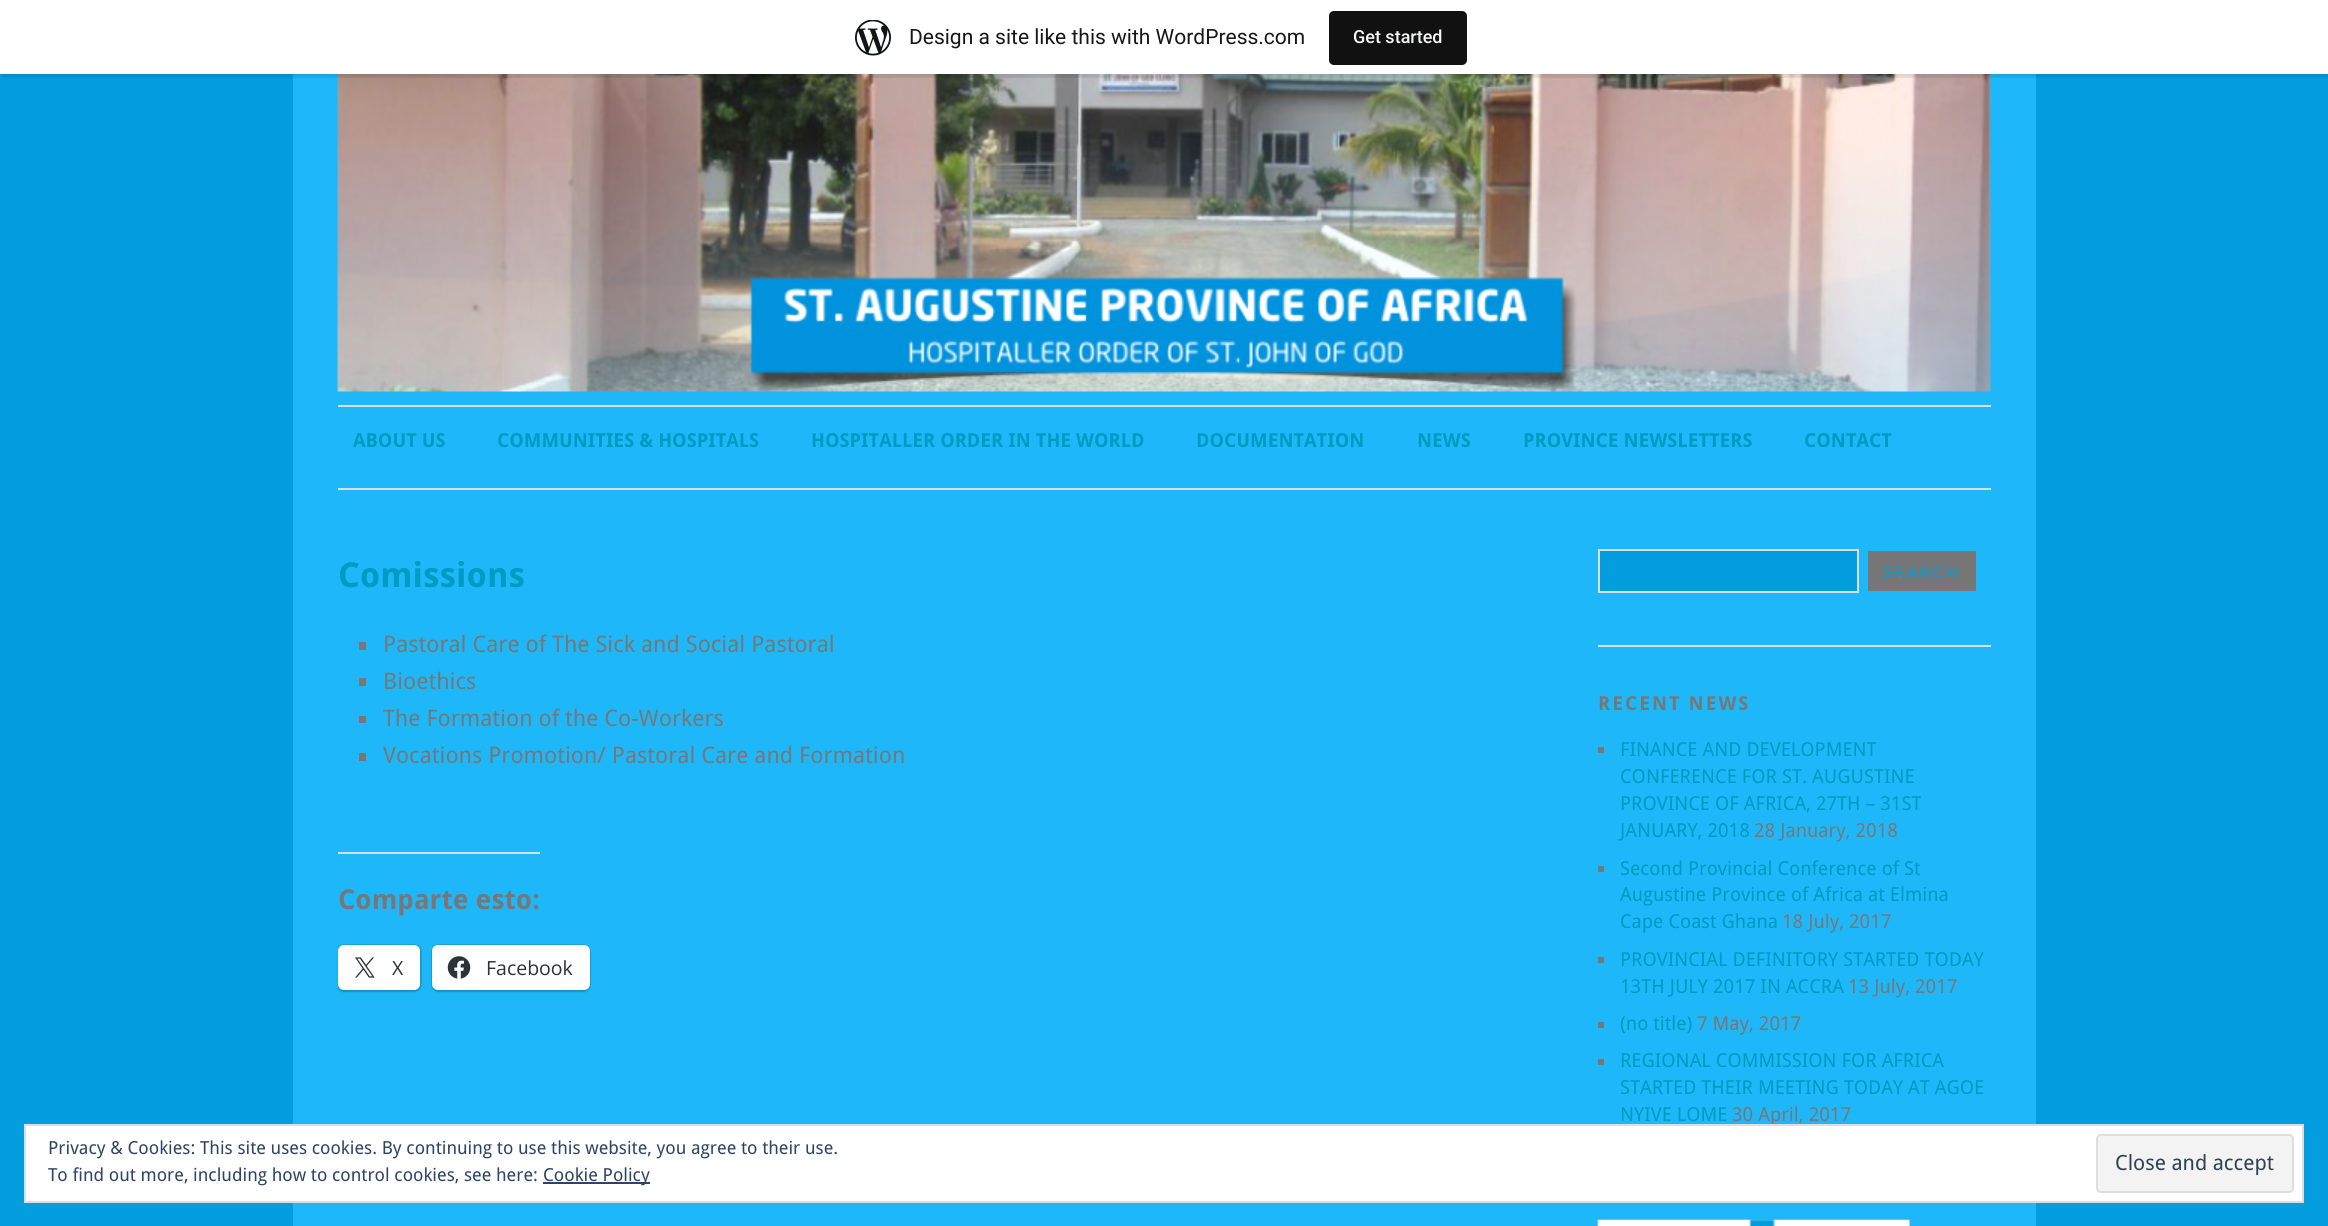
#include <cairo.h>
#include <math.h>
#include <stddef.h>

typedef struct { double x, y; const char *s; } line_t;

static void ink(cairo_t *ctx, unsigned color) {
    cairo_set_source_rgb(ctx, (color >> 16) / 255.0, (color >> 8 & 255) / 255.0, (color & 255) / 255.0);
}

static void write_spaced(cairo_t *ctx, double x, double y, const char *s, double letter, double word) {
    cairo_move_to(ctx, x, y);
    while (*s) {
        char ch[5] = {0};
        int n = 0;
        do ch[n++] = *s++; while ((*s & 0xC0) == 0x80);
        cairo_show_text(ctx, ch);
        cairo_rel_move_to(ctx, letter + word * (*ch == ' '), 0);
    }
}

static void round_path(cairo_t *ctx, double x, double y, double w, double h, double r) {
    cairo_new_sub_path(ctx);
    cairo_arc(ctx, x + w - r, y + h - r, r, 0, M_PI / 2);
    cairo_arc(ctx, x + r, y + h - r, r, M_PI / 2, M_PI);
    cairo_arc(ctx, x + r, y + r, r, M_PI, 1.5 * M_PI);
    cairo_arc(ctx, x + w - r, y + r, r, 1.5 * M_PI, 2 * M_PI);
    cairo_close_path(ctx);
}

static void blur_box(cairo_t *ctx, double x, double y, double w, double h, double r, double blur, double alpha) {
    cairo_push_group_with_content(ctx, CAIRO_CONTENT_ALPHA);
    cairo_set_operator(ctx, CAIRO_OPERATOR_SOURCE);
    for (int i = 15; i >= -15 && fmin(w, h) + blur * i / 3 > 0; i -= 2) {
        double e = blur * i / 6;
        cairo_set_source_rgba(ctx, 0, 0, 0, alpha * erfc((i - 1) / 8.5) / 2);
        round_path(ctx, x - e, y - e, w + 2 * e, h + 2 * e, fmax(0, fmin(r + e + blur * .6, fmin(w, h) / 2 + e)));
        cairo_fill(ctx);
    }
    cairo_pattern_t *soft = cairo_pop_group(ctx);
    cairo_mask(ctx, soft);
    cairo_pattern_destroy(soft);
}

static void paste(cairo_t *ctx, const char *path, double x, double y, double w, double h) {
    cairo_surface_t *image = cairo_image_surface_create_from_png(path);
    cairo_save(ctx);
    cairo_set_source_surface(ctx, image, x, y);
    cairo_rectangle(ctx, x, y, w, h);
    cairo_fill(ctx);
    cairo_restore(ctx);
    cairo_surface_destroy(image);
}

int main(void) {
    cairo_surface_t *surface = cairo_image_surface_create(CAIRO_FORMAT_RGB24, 2328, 1226);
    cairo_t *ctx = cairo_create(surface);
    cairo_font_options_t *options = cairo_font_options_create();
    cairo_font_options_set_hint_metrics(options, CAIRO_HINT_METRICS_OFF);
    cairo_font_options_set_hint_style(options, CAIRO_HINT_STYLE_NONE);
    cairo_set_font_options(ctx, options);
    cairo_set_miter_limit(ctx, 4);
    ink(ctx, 0x049EE0);
    cairo_paint(ctx);
    ink(ctx, 0x1EB8FA);
    cairo_rectangle(ctx, 293, 74, 1743, 1152);
    cairo_fill(ctx);
    paste(ctx, "media/2.png", 337, 74, 1654, 318);
    ink(ctx, 0x000000);
    blur_box(ctx, 0, 2, 2328, 73, 0, 1.5, 0.05);
    cairo_set_source_rgba(ctx, 0, 0, 0, 0.08);
    cairo_new_path(ctx);
    cairo_move_to(ctx, 2, 74);
    cairo_line_to(ctx, 2, 78);
    cairo_line_to(ctx, 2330, 78);
    cairo_line_to(ctx, 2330, 5);
    cairo_line_to(ctx, 2328, 5);
    cairo_line_to(ctx, 2328, 74);
    cairo_close_path(ctx);
    cairo_fill(ctx);
    ink(ctx, 0xFFFFFF);
    cairo_rectangle(ctx, 0, 0, 2328, 74);
    cairo_fill(ctx);
    paste(ctx, "media/1.png", 855, 20, 36, 36);
    cairo_select_font_face(ctx, "Roboto", CAIRO_FONT_SLANT_NORMAL, CAIRO_FONT_WEIGHT_NORMAL);
    cairo_set_font_size(ctx, 21);
    ink(ctx, 0x171717);
    cairo_move_to(ctx, 909, 44);
    cairo_show_text(ctx, "Design a site like this with WordPress.com");
    ink(ctx, 0x111111);
    round_path(ctx, 1329, 11, 138, 54, 5);
    cairo_fill(ctx);
    cairo_select_font_face(ctx, "Roboto Medium", CAIRO_FONT_SLANT_NORMAL, CAIRO_FONT_WEIGHT_NORMAL);
    cairo_set_font_size(ctx, 18);
    ink(ctx, 0xF6F7F7);
    cairo_move_to(ctx, 1353, 43);
    cairo_show_text(ctx, "Get started");
    ink(ctx, 0xDDDDDD);
    cairo_rectangle(ctx, 338, 405, 1653, 2);
    cairo_fill(ctx);
    cairo_select_font_face(ctx, "Droid Sans", CAIRO_FONT_SLANT_NORMAL, CAIRO_FONT_WEIGHT_BOLD);
    cairo_set_font_size(ctx, 19.25);
    ink(ctx, 0x009BC2);
    {
        static const line_t items[] = {
            {353, 447, "ABOUT US"},
            {497, 447, "COMMUNITIES & HOSPITALS"},
            {811, 447, "HOSPITALLER ORDER IN THE WORLD"},
            {1196, 447, "DOCUMENTATION"},
            {1417, 447, "NEWS"},
            {1523, 447, "PROVINCE NEWSLETTERS"},
            {1804, 447, "CONTACT"},
        };
        for (size_t i = 0; i < sizeof items / sizeof *items; i++) {
            cairo_move_to(ctx, items[i].x, items[i].y);
            cairo_show_text(ctx, items[i].s);
        }
    }
    ink(ctx, 0xDDDDDD);
    cairo_rectangle(ctx, 338, 488, 1653, 2);
    cairo_fill(ctx);
    cairo_set_font_size(ctx, 34.25);
    ink(ctx, 0x009BC2);
    cairo_move_to(ctx, 338, 587);
    cairo_show_text(ctx, "Comissions");
    ink(ctx, 0x777777);
    cairo_rectangle(ctx, 359, 642, 7, 8);
    cairo_fill(ctx);
    cairo_select_font_face(ctx, "Droid Sans", CAIRO_FONT_SLANT_NORMAL, CAIRO_FONT_WEIGHT_NORMAL);
    cairo_set_font_size(ctx, 22.8);
    cairo_move_to(ctx, 383, 652);
    cairo_show_text(ctx, "Pastoral Care of The Sick and Social Pastoral");
    cairo_rectangle(ctx, 359, 678, 7, 8);
    cairo_fill(ctx);
    cairo_move_to(ctx, 383, 689);
    cairo_show_text(ctx, "Bioethics");
    cairo_rectangle(ctx, 359, 716, 7, 7);
    cairo_fill(ctx);
    cairo_move_to(ctx, 383, 726);
    cairo_show_text(ctx, "The Formation of the Co-Workers");
    cairo_rectangle(ctx, 359, 753, 7, 8);
    cairo_fill(ctx);
    cairo_move_to(ctx, 383, 763);
    cairo_show_text(ctx, "Vocations Promotion/ Pastoral Care and Formation");
    ink(ctx, 0xDCDCDE);
    cairo_rectangle(ctx, 338, 852, 202, 2);
    cairo_fill(ctx);
    cairo_select_font_face(ctx, "Droid Sans", CAIRO_FONT_SLANT_NORMAL, CAIRO_FONT_WEIGHT_BOLD);
    cairo_set_font_size(ctx, 27.25);
    ink(ctx, 0x777777);
    cairo_move_to(ctx, 338, 909);
    cairo_show_text(ctx, "Comparte esto:");
    cairo_save(ctx);
    cairo_rectangle(ctx, 338, 549, 1233, 602);
    cairo_clip(ctx);
    round_path(ctx, 337, 945, 84, 46, 7);
    ink(ctx, 0x1AA2DC);
    cairo_stroke(ctx);
    cairo_restore(ctx);
    cairo_save(ctx);
    cairo_set_fill_rule(ctx, CAIRO_FILL_RULE_EVEN_ODD);
    cairo_new_path(ctx);
    cairo_move_to(ctx, 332, 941);
    cairo_line_to(ctx, 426, 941);
    cairo_line_to(ctx, 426, 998);
    cairo_line_to(ctx, 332, 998);
    cairo_close_path(ctx);
    cairo_move_to(ctx, 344, 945);
    cairo_line_to(ctx, 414, 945);
    cairo_curve_to(ctx, 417.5, 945, 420, 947.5, 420, 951);
    cairo_line_to(ctx, 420, 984);
    cairo_curve_to(ctx, 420, 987.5, 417.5, 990, 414, 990);
    cairo_line_to(ctx, 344, 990);
    cairo_curve_to(ctx, 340.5, 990, 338, 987.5, 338, 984);
    cairo_line_to(ctx, 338, 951);
    cairo_curve_to(ctx, 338, 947.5, 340.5, 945, 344, 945);
    cairo_close_path(ctx);
    cairo_clip(ctx);
    ink(ctx, 0x000000);
    blur_box(ctx, 338, 947, 82, 45, 6, 1.5, 0.12);
    cairo_restore(ctx);
    ink(ctx, 0xFFFFFF);
    round_path(ctx, 338, 945, 82, 45, 6);
    cairo_fill(ctx);
    paste(ctx, "media/3.png", 355, 957, 20, 21);
    cairo_select_font_face(ctx, "Open Sans", CAIRO_FONT_SLANT_NORMAL, CAIRO_FONT_WEIGHT_NORMAL);
    cairo_set_font_size(ctx, 19.5);
    ink(ctx, 0x2C3338);
    cairo_move_to(ctx, 392, 975);
    cairo_show_text(ctx, "X");
    round_path(ctx, 432, 945, 158, 46, 7);
    ink(ctx, 0x1AA2DC);
    cairo_stroke(ctx);
    ink(ctx, 0x000000);
    blur_box(ctx, 432, 947, 158, 45, 6, 1.5, 0.12);
    ink(ctx, 0xFFFFFF);
    round_path(ctx, 432, 945, 158, 45, 6);
    cairo_fill(ctx);
    paste(ctx, "media/4.png", 447, 956, 24, 23);
    ink(ctx, 0x2C3338);
    cairo_move_to(ctx, 486, 975);
    cairo_show_text(ctx, "Facebook");
    ink(ctx, 0xDDDDDD);
    cairo_rectangle(ctx, 1598, 645, 393, 2);
    cairo_fill(ctx);
    ink(ctx, 0x049EE0);
    cairo_rectangle(ctx, 1599, 550, 259, 42);
    cairo_fill_preserve(ctx);
    ink(ctx, 0xDDDDDD);
    cairo_stroke(ctx);
    ink(ctx, 0x777777);
    cairo_rectangle(ctx, 1868, 551, 108, 40);
    cairo_fill(ctx);
    cairo_select_font_face(ctx, "Liberation Sans", CAIRO_FONT_SLANT_NORMAL, CAIRO_FONT_WEIGHT_NORMAL);
    cairo_set_font_size(ctx, 16.5);
    ink(ctx, 0x049EE0);
    write_spaced(ctx, 1882, 578, "SEARCH", 1.5, 0);
    cairo_select_font_face(ctx, "Droid Sans", CAIRO_FONT_SLANT_NORMAL, CAIRO_FONT_WEIGHT_BOLD);
    cairo_set_font_size(ctx, 19.25);
    ink(ctx, 0x777777);
    write_spaced(ctx, 1598, 710, "RECENT NEWS", 2, 0);
    cairo_rectangle(ctx, 1598, 747, 6, 6);
    cairo_fill(ctx);
    cairo_select_font_face(ctx, "Droid Sans", CAIRO_FONT_SLANT_NORMAL, CAIRO_FONT_WEIGHT_NORMAL);
    ink(ctx, 0x009BC2);
    {
        static const line_t items[] = {
            {1620, 756, "FINANCE AND DEVELOPMENT"},
            {1620, 783, "CONFERENCE FOR ST. AUGUSTINE"},
            {1620, 810, "PROVINCE OF AFRICA, 27TH – 31ST"},
            {1620, 837, "JANUARY, 2018"},
        };
        for (size_t i = 0; i < sizeof items / sizeof *items; i++) {
            cairo_move_to(ctx, items[i].x, items[i].y);
            cairo_show_text(ctx, items[i].s);
        }
    }
    ink(ctx, 0x777777);
    cairo_move_to(ctx, 1754, 837);
    cairo_show_text(ctx, "28 January, 2018");
    cairo_rectangle(ctx, 1598, 866, 6, 6);
    cairo_fill(ctx);
    ink(ctx, 0x009BC2);
    {
        static const line_t items[] = {
            {1620, 875, "Second Provincial Conference of St"},
            {1620, 901, "Augustine Province of Africa at Elmina"},
            {1620, 928, "Cape Coast Ghana"},
        };
        for (size_t i = 0; i < sizeof items / sizeof *items; i++) {
            cairo_move_to(ctx, items[i].x, items[i].y);
            cairo_show_text(ctx, items[i].s);
        }
    }
    ink(ctx, 0x777777);
    cairo_move_to(ctx, 1782, 928);
    cairo_show_text(ctx, "18 July, 2017");
    cairo_rectangle(ctx, 1598, 957, 6, 6);
    cairo_fill(ctx);
    ink(ctx, 0x009BC2);
    cairo_move_to(ctx, 1620, 966);
    cairo_show_text(ctx, "PROVINCIAL DEFINITORY STARTED TODAY");
    cairo_move_to(ctx, 1620, 993);
    cairo_show_text(ctx, "13TH JULY 2017 IN ACCRA");
    ink(ctx, 0x777777);
    cairo_move_to(ctx, 1848, 993);
    cairo_show_text(ctx, "13 July, 2017");
    cairo_rectangle(ctx, 1598, 1022, 6, 6);
    cairo_fill(ctx);
    ink(ctx, 0x009BC2);
    cairo_move_to(ctx, 1620, 1030);
    cairo_show_text(ctx, "(no title)");
    ink(ctx, 0x777777);
    cairo_move_to(ctx, 1697, 1030);
    cairo_show_text(ctx, "7 May, 2017");
    cairo_rectangle(ctx, 1598, 1059, 6, 6);
    cairo_fill(ctx);
    ink(ctx, 0x009BC2);
    {
        static const line_t items[] = {
            {1620, 1067, "REGIONAL COMMISSION FOR AFRICA"},
            {1620, 1094, "STARTED THEIR MEETING TODAY AT AGOE"},
            {1620, 1121, "NYIVE LOME"},
        };
        for (size_t i = 0; i < sizeof items / sizeof *items; i++) {
            cairo_move_to(ctx, items[i].x, items[i].y);
            cairo_show_text(ctx, items[i].s);
        }
    }
    ink(ctx, 0x777777);
    cairo_move_to(ctx, 1732, 1121);
    cairo_show_text(ctx, "30 April, 2017");
    paste(ctx, "media/5.png", 1597, 1219, 313, 7);
    ink(ctx, 0xFFFFFF);
    cairo_rectangle(ctx, 25, 1125, 2278, 77);
    cairo_fill_preserve(ctx);
    ink(ctx, 0xDEDEDE);
    cairo_stroke(ctx);
    cairo_set_font_size(ctx, 18);
    ink(ctx, 0x2E4467);
    cairo_move_to(ctx, 48, 1154);
    cairo_show_text(ctx, "Privacy & Cookies: This site uses cookies. By continuing to use this website, you agree to their use.");
    cairo_move_to(ctx, 48, 1181);
    cairo_show_text(ctx, "To find out more, including how to control cookies, see here:");
    cairo_rectangle(ctx, 543, 1182, 107, 2);
    cairo_fill(ctx);
    cairo_move_to(ctx, 543, 1181);
    cairo_show_text(ctx, "Cookie Policy");
    ink(ctx, 0xF3F3F3);
    round_path(ctx, 2097, 1135, 196, 57, 4);
    cairo_fill_preserve(ctx);
    ink(ctx, 0xDEDEDE);
    cairo_stroke(ctx);
    cairo_set_font_size(ctx, 21);
    ink(ctx, 0x2E4453);
    cairo_move_to(ctx, 2115, 1170);
    cairo_show_text(ctx, "Close and accept");
    cairo_surface_write_to_png(surface, "image.png");
    cairo_font_options_destroy(options);
    cairo_destroy(ctx);
    cairo_surface_destroy(surface);
    return 0;
}
